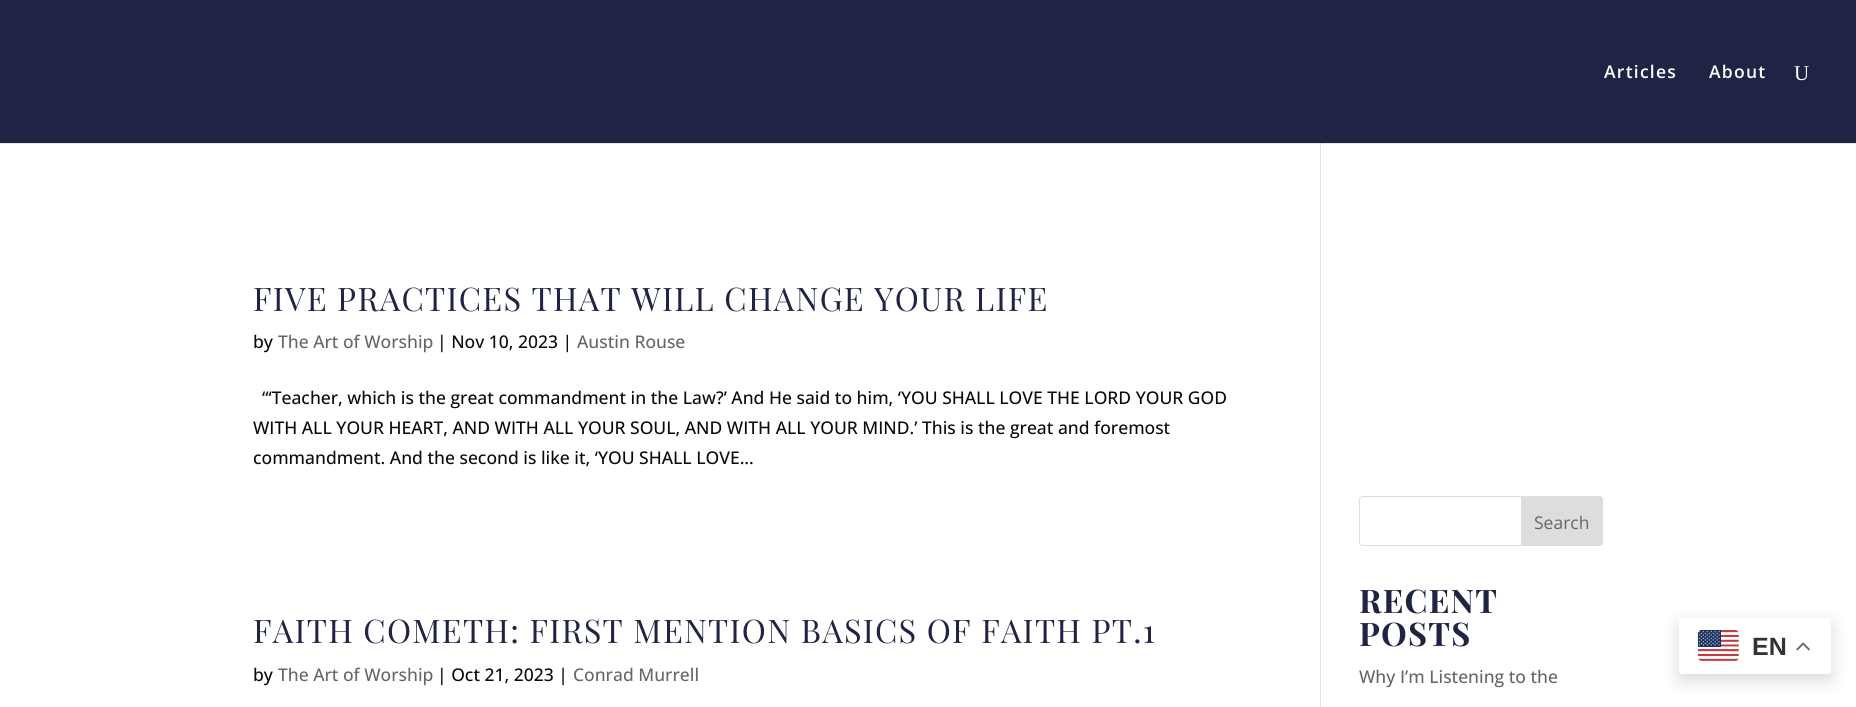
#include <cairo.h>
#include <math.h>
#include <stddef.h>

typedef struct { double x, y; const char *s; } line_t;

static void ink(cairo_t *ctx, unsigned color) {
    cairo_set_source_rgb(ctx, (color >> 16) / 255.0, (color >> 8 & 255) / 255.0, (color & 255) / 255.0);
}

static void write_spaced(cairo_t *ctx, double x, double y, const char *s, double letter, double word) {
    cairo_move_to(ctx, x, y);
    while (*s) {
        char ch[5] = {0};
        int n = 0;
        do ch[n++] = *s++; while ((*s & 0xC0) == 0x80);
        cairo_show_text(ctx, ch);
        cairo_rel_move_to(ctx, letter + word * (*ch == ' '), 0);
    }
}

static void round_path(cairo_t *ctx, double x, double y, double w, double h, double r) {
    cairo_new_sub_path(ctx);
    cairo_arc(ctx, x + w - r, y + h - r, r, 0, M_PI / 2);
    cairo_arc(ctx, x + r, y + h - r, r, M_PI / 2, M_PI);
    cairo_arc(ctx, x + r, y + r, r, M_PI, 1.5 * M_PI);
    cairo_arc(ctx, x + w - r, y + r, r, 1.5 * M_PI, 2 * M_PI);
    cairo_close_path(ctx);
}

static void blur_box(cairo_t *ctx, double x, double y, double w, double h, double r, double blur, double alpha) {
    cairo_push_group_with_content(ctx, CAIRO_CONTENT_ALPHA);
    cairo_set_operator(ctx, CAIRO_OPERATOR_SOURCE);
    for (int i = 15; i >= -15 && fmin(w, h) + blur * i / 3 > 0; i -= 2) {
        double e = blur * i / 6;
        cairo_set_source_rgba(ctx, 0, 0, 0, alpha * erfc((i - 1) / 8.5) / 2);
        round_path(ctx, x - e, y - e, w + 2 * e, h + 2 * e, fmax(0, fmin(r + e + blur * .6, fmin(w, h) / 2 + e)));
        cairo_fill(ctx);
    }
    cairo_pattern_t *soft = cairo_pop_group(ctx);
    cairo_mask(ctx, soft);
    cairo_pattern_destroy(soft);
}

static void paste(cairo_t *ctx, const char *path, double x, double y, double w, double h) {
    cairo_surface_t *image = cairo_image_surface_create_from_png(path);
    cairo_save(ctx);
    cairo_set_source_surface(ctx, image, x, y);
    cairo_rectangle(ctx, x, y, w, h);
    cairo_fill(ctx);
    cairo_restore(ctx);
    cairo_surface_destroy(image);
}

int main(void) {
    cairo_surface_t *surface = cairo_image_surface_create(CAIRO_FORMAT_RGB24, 1856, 707);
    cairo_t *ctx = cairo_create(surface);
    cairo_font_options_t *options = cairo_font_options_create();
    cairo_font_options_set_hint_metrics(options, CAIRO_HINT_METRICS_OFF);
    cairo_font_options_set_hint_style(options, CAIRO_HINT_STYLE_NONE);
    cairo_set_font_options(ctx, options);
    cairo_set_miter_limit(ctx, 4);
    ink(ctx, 0xFFFFFF);
    cairo_paint(ctx);
    ink(ctx, 0xE6E6E6);
    cairo_rectangle(ctx, 0, 143, 1856, 1);
    cairo_fill(ctx);
    ink(ctx, 0x202444);
    cairo_rectangle(ctx, 0, 0, 1856, 143);
    cairo_fill(ctx);
    cairo_select_font_face(ctx, "Open Sans SemiBold", CAIRO_FONT_SLANT_NORMAL, CAIRO_FONT_WEIGHT_NORMAL);
    cairo_set_font_size(ctx, 17.5);
    ink(ctx, 0xFFFFFF);
    write_spaced(ctx, 1604, 78, "Articles", 1.25, 0);
    write_spaced(ctx, 1709, 78, "About", 1.25, 0);
    cairo_select_font_face(ctx, "Liberation Serif", CAIRO_FONT_SLANT_NORMAL, CAIRO_FONT_WEIGHT_NORMAL);
    cairo_set_font_size(ctx, 21);
    cairo_move_to(ctx, 1794, 80);
    cairo_show_text(ctx, "U");
    ink(ctx, 0xE2E2E2);
    cairo_rectangle(ctx, 1320, 143, 1, 564);
    cairo_fill(ctx);
    ink(ctx, 0xCBCBCB);
    cairo_rectangle(ctx, 1320, 143, 1, 1);
    cairo_fill(ctx);
    cairo_select_font_face(ctx, "Playfair Display", CAIRO_FONT_SLANT_NORMAL, CAIRO_FONT_WEIGHT_NORMAL);
    cairo_set_font_size(ctx, 32.5);
    ink(ctx, 0x202444);
    write_spaced(ctx, 253, 311, "FIVE PRACTICES THAT WILL CHANGE YOUR LIFE", 1.25, 0);
    cairo_select_font_face(ctx, "Open Sans Medium", CAIRO_FONT_SLANT_NORMAL, CAIRO_FONT_WEIGHT_NORMAL);
    cairo_set_font_size(ctx, 17.5);
    ink(ctx, 0x0E0909);
    cairo_move_to(ctx, 253, 348);
    cairo_show_text(ctx, "by");
    ink(ctx, 0x666666);
    cairo_move_to(ctx, 278, 348);
    cairo_show_text(ctx, "The Art of Worship");
    ink(ctx, 0x0E0909);
    cairo_move_to(ctx, 437, 348);
    cairo_show_text(ctx, "| Nov 10, 2023 |");
    ink(ctx, 0x666666);
    cairo_move_to(ctx, 577, 348);
    cairo_show_text(ctx, "Austin Rouse");
    ink(ctx, 0x0E0909);
    {
        static const line_t items[] = {
            {262, 404, "“‘Teacher, which is the great commandment in the Law?’ And He said to him, ‘YOU SHALL LOVE THE LORD YOUR GOD"},
            {253, 434, "WITH ALL YOUR HEART, AND WITH ALL YOUR SOUL, AND WITH ALL YOUR MIND.’ This is the great and foremost"},
            {253, 464, "commandment. And the second is like it, ‘YOU SHALL LOVE..."},
        };
        for (size_t i = 0; i < sizeof items / sizeof *items; i++) {
            cairo_move_to(ctx, items[i].x, items[i].y);
            cairo_show_text(ctx, items[i].s);
        }
    }
    cairo_select_font_face(ctx, "Playfair Display", CAIRO_FONT_SLANT_NORMAL, CAIRO_FONT_WEIGHT_NORMAL);
    cairo_set_font_size(ctx, 32.5);
    ink(ctx, 0x202444);
    write_spaced(ctx, 253, 643, "FAITH COMETH: FIRST MENTION BASICS OF FAITH PT.1", 1.25, 0);
    cairo_select_font_face(ctx, "Open Sans Medium", CAIRO_FONT_SLANT_NORMAL, CAIRO_FONT_WEIGHT_NORMAL);
    cairo_set_font_size(ctx, 17.5);
    ink(ctx, 0x0E0909);
    cairo_move_to(ctx, 253, 681);
    cairo_show_text(ctx, "by");
    ink(ctx, 0x666666);
    cairo_move_to(ctx, 278, 681);
    cairo_show_text(ctx, "The Art of Worship");
    ink(ctx, 0x0E0909);
    cairo_move_to(ctx, 437, 681);
    cairo_show_text(ctx, "| Oct 21, 2023 |");
    ink(ctx, 0x666666);
    cairo_move_to(ctx, 573, 681);
    cairo_show_text(ctx, "Conrad Murrell");
    round_path(ctx, 1359.5, 496.5, 243, 49, 3.5);
    ink(ctx, 0xDDDDDD);
    cairo_set_line_width(ctx, 1);
    cairo_stroke(ctx);
    cairo_new_path(ctx);
    cairo_move_to(ctx, 1521.5, 496.5);
    cairo_line_to(ctx, 1599, 496.5);
    cairo_curve_to(ctx, 1601, 496.5, 1602.5, 498, 1602.5, 500);
    cairo_line_to(ctx, 1602.5, 542);
    cairo_curve_to(ctx, 1602.5, 544, 1601, 545.5, 1599, 545.5);
    cairo_line_to(ctx, 1521.5, 545.5);
    cairo_close_path(ctx);
    cairo_fill_preserve(ctx);
    cairo_stroke(ctx);
    cairo_select_font_face(ctx, "Open Sans", CAIRO_FONT_SLANT_NORMAL, CAIRO_FONT_WEIGHT_NORMAL);
    ink(ctx, 0x666666);
    cairo_move_to(ctx, 1534, 529);
    cairo_show_text(ctx, "Search");
    cairo_select_font_face(ctx, "Playfair Display", CAIRO_FONT_SLANT_NORMAL, CAIRO_FONT_WEIGHT_BOLD);
    cairo_set_font_size(ctx, 32.5);
    ink(ctx, 0x202444);
    write_spaced(ctx, 1359, 613, "RECENT", 1.25, 0);
    write_spaced(ctx, 1359, 646, "POSTS", 1.25, 0);
    cairo_select_font_face(ctx, "Open Sans Medium", CAIRO_FONT_SLANT_NORMAL, CAIRO_FONT_WEIGHT_NORMAL);
    cairo_set_font_size(ctx, 17.5);
    ink(ctx, 0x666666);
    cairo_move_to(ctx, 1359, 683);
    cairo_show_text(ctx, "Why I’m Listening to the");
    ink(ctx, 0x000000);
    blur_box(ctx, 1679, 624, 152, 56, 2.5, 9.5, 0.15);
    ink(ctx, 0xFFFFFF);
    round_path(ctx, 1679, 618, 152, 56, 2.5);
    cairo_fill(ctx);
    paste(ctx, "media/1.png", 1698, 630, 41, 31);
    cairo_select_font_face(ctx, "Liberation Sans", CAIRO_FONT_SLANT_NORMAL, CAIRO_FONT_WEIGHT_BOLD);
    cairo_set_font_size(ctx, 25);
    ink(ctx, 0x333333);
    cairo_move_to(ctx, 1752, 655);
    cairo_show_text(ctx, "EN");
    paste(ctx, "media/2.png", 1796, 642, 14, 9);
    cairo_surface_write_to_png(surface, "image.png");
    cairo_font_options_destroy(options);
    cairo_destroy(ctx);
    cairo_surface_destroy(surface);
    return 0;
}
